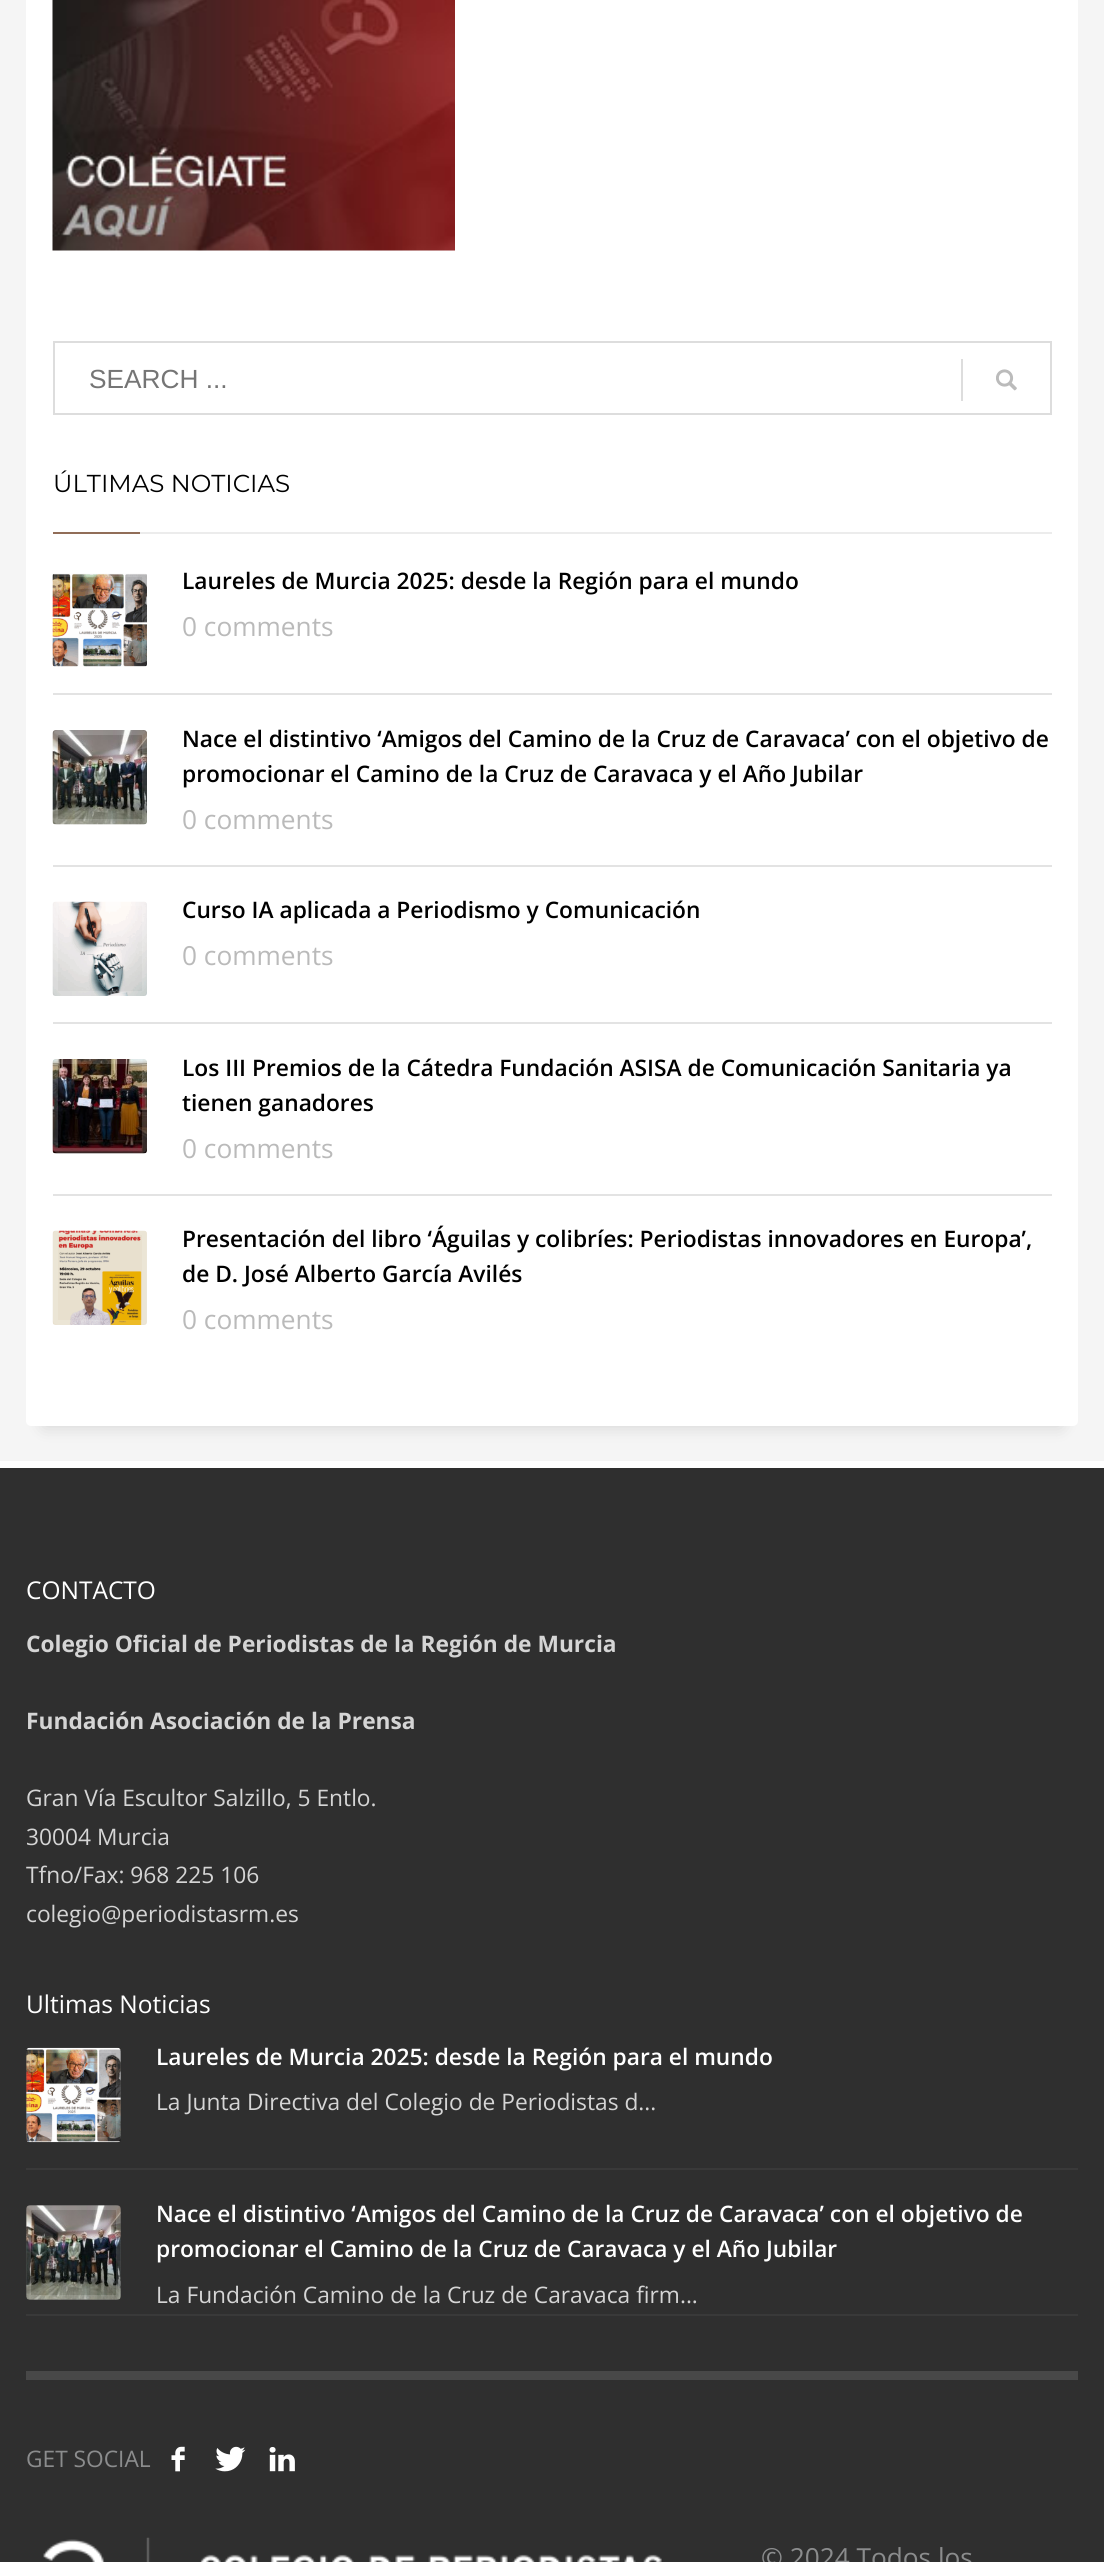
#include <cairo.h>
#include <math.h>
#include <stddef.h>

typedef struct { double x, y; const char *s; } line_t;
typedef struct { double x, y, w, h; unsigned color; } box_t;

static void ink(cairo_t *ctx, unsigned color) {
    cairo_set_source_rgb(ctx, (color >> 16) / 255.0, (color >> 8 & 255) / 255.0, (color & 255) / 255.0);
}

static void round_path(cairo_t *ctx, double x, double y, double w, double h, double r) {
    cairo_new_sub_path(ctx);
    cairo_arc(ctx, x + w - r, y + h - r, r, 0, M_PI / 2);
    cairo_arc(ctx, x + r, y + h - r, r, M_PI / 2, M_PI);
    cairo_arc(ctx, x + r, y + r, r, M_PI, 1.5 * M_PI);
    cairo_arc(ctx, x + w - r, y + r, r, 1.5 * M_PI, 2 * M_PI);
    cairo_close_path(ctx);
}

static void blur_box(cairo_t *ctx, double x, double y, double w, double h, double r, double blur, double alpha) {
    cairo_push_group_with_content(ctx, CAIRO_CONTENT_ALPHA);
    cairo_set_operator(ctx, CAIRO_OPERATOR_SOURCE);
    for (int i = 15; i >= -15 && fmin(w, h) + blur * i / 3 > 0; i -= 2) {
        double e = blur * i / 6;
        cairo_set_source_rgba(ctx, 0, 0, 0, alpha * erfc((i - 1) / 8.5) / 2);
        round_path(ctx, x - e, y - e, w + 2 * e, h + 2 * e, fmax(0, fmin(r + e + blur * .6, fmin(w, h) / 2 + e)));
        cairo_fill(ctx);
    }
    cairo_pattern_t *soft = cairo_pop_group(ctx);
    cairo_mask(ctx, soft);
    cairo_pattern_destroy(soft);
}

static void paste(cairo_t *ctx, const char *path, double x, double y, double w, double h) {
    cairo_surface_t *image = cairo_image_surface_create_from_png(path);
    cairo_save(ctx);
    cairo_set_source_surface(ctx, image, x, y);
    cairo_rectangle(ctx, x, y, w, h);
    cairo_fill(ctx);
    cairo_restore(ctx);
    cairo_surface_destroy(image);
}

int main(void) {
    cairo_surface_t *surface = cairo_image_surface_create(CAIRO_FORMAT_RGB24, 1104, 2562);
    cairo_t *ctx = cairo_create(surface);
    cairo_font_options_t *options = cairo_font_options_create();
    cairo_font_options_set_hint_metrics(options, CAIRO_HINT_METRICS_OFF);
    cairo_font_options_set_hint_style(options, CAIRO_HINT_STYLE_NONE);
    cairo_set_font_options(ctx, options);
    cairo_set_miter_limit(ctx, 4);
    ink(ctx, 0xF5F5F5);
    cairo_paint(ctx);
    ink(ctx, 0x000000);
    blur_box(ctx, 44, -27, 1017, 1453, 0, 9, 0.15);
    ink(ctx, 0xFFFFFF);
    round_path(ctx, 26, -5, 1052, 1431, 5);
    cairo_fill(ctx);
    paste(ctx, "media/1.png", 52, 0, 403, 251);
    cairo_rectangle(ctx, 54, 342, 997, 72);
    ink(ctx, 0xDDDDDD);
    cairo_stroke(ctx);
    cairo_select_font_face(ctx, "Liberation Sans", CAIRO_FONT_SLANT_NORMAL, CAIRO_FONT_WEIGHT_NORMAL);
    cairo_set_font_size(ctx, 26.25);
    ink(ctx, 0x757575);
    cairo_move_to(ctx, 89, 388);
    cairo_show_text(ctx, "SEARCH ...");
    ink(ctx, 0xDDDDDD);
    cairo_rectangle(ctx, 961, 359, 2, 42);
    cairo_fill(ctx);
    paste(ctx, "media/2.png", 996, 369, 21, 22);
    cairo_select_font_face(ctx, "Montserrat", CAIRO_FONT_SLANT_NORMAL, CAIRO_FONT_WEIGHT_NORMAL);
    cairo_set_font_size(ctx, 24.5);
    ink(ctx, 0x000000);
    cairo_move_to(ctx, 53, 492);
    cairo_show_text(ctx, "ÚLTIMAS NOTICIAS");
    {
        static const box_t items[] = {
            {53, 532, 87, 2, 0x916D58},
            {140, 532, 912, 2, 0xECECEC},
            {53, 693, 999, 2, 0xE3E3E3},
        };
        for (size_t i = 0; i < sizeof items / sizeof *items; i++) {
            ink(ctx, items[i].color);
            cairo_rectangle(ctx, items[i].x, items[i].y, items[i].w, items[i].h);
            cairo_fill(ctx);
        }
    }
    paste(ctx, "media/3.png", 52, 573, 95, 94);
    round_path(ctx, 55.5, 574.5, 89, 90, 2.5);
    cairo_set_source_rgba(ctx, 1, 1, 1, 0.15);
    cairo_set_line_width(ctx, 5);
    cairo_stroke(ctx);
    cairo_select_font_face(ctx, "Open Sans SemiBold", CAIRO_FONT_SLANT_NORMAL, CAIRO_FONT_WEIGHT_NORMAL);
    cairo_set_font_size(ctx, 22.75);
    ink(ctx, 0x000000);
    cairo_move_to(ctx, 182, 589);
    cairo_show_text(ctx, "Laureles de Murcia 2025: desde la Región para el mundo");
    cairo_select_font_face(ctx, "Open Sans", CAIRO_FONT_SLANT_NORMAL, CAIRO_FONT_WEIGHT_NORMAL);
    cairo_set_font_size(ctx, 26.25);
    ink(ctx, 0xBABABA);
    cairo_move_to(ctx, 182, 636);
    cairo_show_text(ctx, "0 comments");
    ink(ctx, 0xE3E3E3);
    cairo_rectangle(ctx, 53, 865, 999, 2);
    cairo_fill(ctx);
    paste(ctx, "media/4.png", 52, 730, 95, 95);
    round_path(ctx, 55.5, 732.5, 89, 89, 2.5);
    cairo_set_source_rgba(ctx, 1, 1, 1, 0.15);
    cairo_stroke(ctx);
    cairo_select_font_face(ctx, "Open Sans SemiBold", CAIRO_FONT_SLANT_NORMAL, CAIRO_FONT_WEIGHT_NORMAL);
    cairo_set_font_size(ctx, 22.75);
    ink(ctx, 0x000000);
    cairo_move_to(ctx, 182, 747);
    cairo_show_text(ctx, "Nace el distintivo ‘Amigos del Camino de la Cruz de Caravaca’ con el objetivo de");
    cairo_move_to(ctx, 182, 782);
    cairo_show_text(ctx, "promocionar el Camino de la Cruz de Caravaca y el Año Jubilar");
    cairo_select_font_face(ctx, "Open Sans", CAIRO_FONT_SLANT_NORMAL, CAIRO_FONT_WEIGHT_NORMAL);
    cairo_set_font_size(ctx, 26.25);
    ink(ctx, 0xBABABA);
    cairo_move_to(ctx, 182, 829);
    cairo_show_text(ctx, "0 comments");
    ink(ctx, 0xE3E3E3);
    cairo_rectangle(ctx, 53, 1022, 999, 2);
    cairo_fill(ctx);
    paste(ctx, "media/5.png", 52, 901, 95, 95);
    round_path(ctx, 55.5, 903.5, 89, 90, 2.5);
    cairo_set_source_rgba(ctx, 1, 1, 1, 0.15);
    cairo_stroke(ctx);
    cairo_select_font_face(ctx, "Open Sans SemiBold", CAIRO_FONT_SLANT_NORMAL, CAIRO_FONT_WEIGHT_NORMAL);
    cairo_set_font_size(ctx, 22.75);
    ink(ctx, 0x000000);
    cairo_move_to(ctx, 182, 918);
    cairo_show_text(ctx, "Curso IA aplicada a Periodismo y Comunicación");
    cairo_select_font_face(ctx, "Open Sans", CAIRO_FONT_SLANT_NORMAL, CAIRO_FONT_WEIGHT_NORMAL);
    cairo_set_font_size(ctx, 26.25);
    ink(ctx, 0xBABABA);
    cairo_move_to(ctx, 182, 965);
    cairo_show_text(ctx, "0 comments");
    ink(ctx, 0xE3E3E3);
    cairo_rectangle(ctx, 53, 1194, 999, 2);
    cairo_fill(ctx);
    paste(ctx, "media/6.png", 52, 1059, 95, 95);
    round_path(ctx, 55.5, 1061.5, 89, 89, 2.5);
    cairo_set_source_rgba(ctx, 1, 1, 1, 0.15);
    cairo_stroke(ctx);
    cairo_select_font_face(ctx, "Open Sans SemiBold", CAIRO_FONT_SLANT_NORMAL, CAIRO_FONT_WEIGHT_NORMAL);
    cairo_set_font_size(ctx, 22.75);
    ink(ctx, 0x000000);
    cairo_move_to(ctx, 182, 1076);
    cairo_show_text(ctx, "Los III Premios de la Cátedra Fundación ASISA de Comunicación Sanitaria ya");
    cairo_move_to(ctx, 182, 1111);
    cairo_show_text(ctx, "tienen ganadores");
    cairo_select_font_face(ctx, "Open Sans", CAIRO_FONT_SLANT_NORMAL, CAIRO_FONT_WEIGHT_NORMAL);
    cairo_set_font_size(ctx, 26.25);
    ink(ctx, 0xBABABA);
    cairo_move_to(ctx, 182, 1158);
    cairo_show_text(ctx, "0 comments");
    paste(ctx, "media/7.png", 52, 1230, 95, 95);
    round_path(ctx, 55.5, 1232.5, 89, 90, 2.5);
    cairo_set_source_rgba(ctx, 1, 1, 1, 0.15);
    cairo_stroke(ctx);
    cairo_select_font_face(ctx, "Open Sans SemiBold", CAIRO_FONT_SLANT_NORMAL, CAIRO_FONT_WEIGHT_NORMAL);
    cairo_set_font_size(ctx, 22.75);
    ink(ctx, 0x000000);
    cairo_move_to(ctx, 182, 1247);
    cairo_show_text(ctx, "Presentación del libro ‘Águilas y colibríes: Periodistas innovadores en Europa’,");
    cairo_move_to(ctx, 182, 1282);
    cairo_show_text(ctx, "de D. José Alberto García Avilés");
    cairo_select_font_face(ctx, "Open Sans", CAIRO_FONT_SLANT_NORMAL, CAIRO_FONT_WEIGHT_NORMAL);
    cairo_set_font_size(ctx, 26.25);
    ink(ctx, 0xBABABA);
    cairo_move_to(ctx, 182, 1329);
    cairo_show_text(ctx, "0 comments");
    ink(ctx, 0x2F2F2F);
    cairo_rectangle(ctx, 0, 1468, 1104, 1094);
    cairo_fill(ctx);
    ink(ctx, 0xFFFFFF);
    cairo_rectangle(ctx, 0, 1461, 1104, 7);
    cairo_fill(ctx);
    cairo_set_font_size(ctx, 24.5);
    cairo_move_to(ctx, 26, 1599);
    cairo_show_text(ctx, "CONTACTO");
    cairo_select_font_face(ctx, "Open Sans", CAIRO_FONT_SLANT_NORMAL, CAIRO_FONT_WEIGHT_BOLD);
    cairo_set_font_size(ctx, 22.75);
    ink(ctx, 0xD5D5D5);
    cairo_move_to(ctx, 26, 1652);
    cairo_show_text(ctx, "Colegio Oficial de Periodistas de la Región de Murcia");
    cairo_move_to(ctx, 26, 1729);
    cairo_show_text(ctx, "Fundación Asociación de la Prensa");
    cairo_select_font_face(ctx, "Open Sans", CAIRO_FONT_SLANT_NORMAL, CAIRO_FONT_WEIGHT_NORMAL);
    {
        static const line_t items[] = {
            {26, 1806, "Gran Vía Escultor Salzillo, 5 Entlo."},
            {26, 1845, "30004 Murcia"},
            {26, 1883, "Tfno/Fax: 968 225 106"},
            {26, 1922, "colegio@periodistasrm.es"},
        };
        for (size_t i = 0; i < sizeof items / sizeof *items; i++) {
            cairo_move_to(ctx, items[i].x, items[i].y);
            cairo_show_text(ctx, items[i].s);
        }
    }
    cairo_set_font_size(ctx, 24.5);
    ink(ctx, 0xFFFFFF);
    cairo_move_to(ctx, 26, 2013);
    cairo_show_text(ctx, "Ultimas Noticias");
    ink(ctx, 0x393939);
    cairo_rectangle(ctx, 26, 2168, 1052, 2);
    cairo_fill(ctx);
    paste(ctx, "media/8.png", 26, 2047, 95, 96);
    round_path(ctx, 28.5, 2050.5, 90, 89, 2.5);
    cairo_set_source_rgba(ctx, 1, 1, 1, 0.15);
    cairo_stroke(ctx);
    cairo_select_font_face(ctx, "Open Sans SemiBold", CAIRO_FONT_SLANT_NORMAL, CAIRO_FONT_WEIGHT_NORMAL);
    cairo_set_font_size(ctx, 22.75);
    ink(ctx, 0xFFFFFF);
    cairo_move_to(ctx, 156, 2065);
    cairo_show_text(ctx, "Laureles de Murcia 2025: desde la Región para el mundo");
    cairo_select_font_face(ctx, "Open Sans", CAIRO_FONT_SLANT_NORMAL, CAIRO_FONT_WEIGHT_NORMAL);
    ink(ctx, 0xD5D5D5);
    cairo_move_to(ctx, 156, 2110);
    cairo_show_text(ctx, "La Junta Directiva del Colegio de Periodistas d...");
    ink(ctx, 0x393939);
    cairo_rectangle(ctx, 26, 2314, 1052, 2);
    cairo_fill(ctx);
    paste(ctx, "media/9.png", 26, 2205, 95, 95);
    round_path(ctx, 28.5, 2207.5, 90, 90, 2.5);
    cairo_set_source_rgba(ctx, 1, 1, 1, 0.15);
    cairo_stroke(ctx);
    cairo_select_font_face(ctx, "Open Sans SemiBold", CAIRO_FONT_SLANT_NORMAL, CAIRO_FONT_WEIGHT_NORMAL);
    ink(ctx, 0xFFFFFF);
    cairo_move_to(ctx, 156, 2222);
    cairo_show_text(ctx, "Nace el distintivo ‘Amigos del Camino de la Cruz de Caravaca’ con el objetivo de");
    cairo_move_to(ctx, 156, 2257);
    cairo_show_text(ctx, "promocionar el Camino de la Cruz de Caravaca y el Año Jubilar");
    cairo_select_font_face(ctx, "Open Sans", CAIRO_FONT_SLANT_NORMAL, CAIRO_FONT_WEIGHT_NORMAL);
    ink(ctx, 0xD5D5D5);
    cairo_move_to(ctx, 156, 2303);
    cairo_show_text(ctx, "La Fundación Camino de la Cruz de Caravaca firm...");
    ink(ctx, 0x484848);
    cairo_rectangle(ctx, 26, 2371, 1052, 9);
    cairo_fill(ctx);
    ink(ctx, 0x8B8C8D);
    cairo_move_to(ctx, 26, 2467);
    cairo_show_text(ctx, "GET SOCIAL");
    paste(ctx, "media/10.png", 171, 2446, 14, 26);
    paste(ctx, "media/11.png", 215, 2446, 31, 26);
    paste(ctx, "media/12.png", 269, 2447, 26, 25);
    paste(ctx, "media/13.png", 43, 2537, 619, 25);
    cairo_set_font_size(ctx, 26.25);
    cairo_move_to(ctx, 761, 2567);
    cairo_show_text(ctx, "© 2024 Todos los");
    cairo_surface_write_to_png(surface, "image.png");
    cairo_font_options_destroy(options);
    cairo_destroy(ctx);
    cairo_surface_destroy(surface);
    return 0;
}
